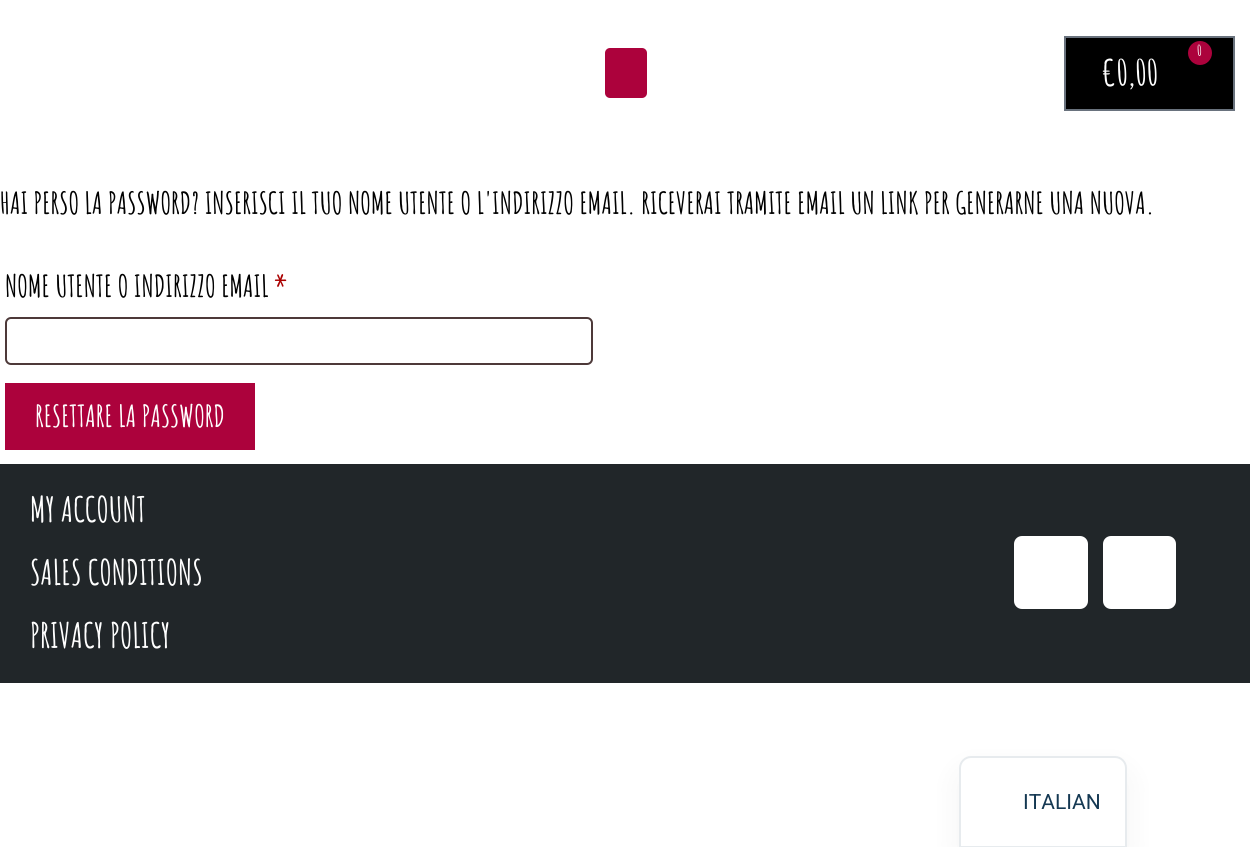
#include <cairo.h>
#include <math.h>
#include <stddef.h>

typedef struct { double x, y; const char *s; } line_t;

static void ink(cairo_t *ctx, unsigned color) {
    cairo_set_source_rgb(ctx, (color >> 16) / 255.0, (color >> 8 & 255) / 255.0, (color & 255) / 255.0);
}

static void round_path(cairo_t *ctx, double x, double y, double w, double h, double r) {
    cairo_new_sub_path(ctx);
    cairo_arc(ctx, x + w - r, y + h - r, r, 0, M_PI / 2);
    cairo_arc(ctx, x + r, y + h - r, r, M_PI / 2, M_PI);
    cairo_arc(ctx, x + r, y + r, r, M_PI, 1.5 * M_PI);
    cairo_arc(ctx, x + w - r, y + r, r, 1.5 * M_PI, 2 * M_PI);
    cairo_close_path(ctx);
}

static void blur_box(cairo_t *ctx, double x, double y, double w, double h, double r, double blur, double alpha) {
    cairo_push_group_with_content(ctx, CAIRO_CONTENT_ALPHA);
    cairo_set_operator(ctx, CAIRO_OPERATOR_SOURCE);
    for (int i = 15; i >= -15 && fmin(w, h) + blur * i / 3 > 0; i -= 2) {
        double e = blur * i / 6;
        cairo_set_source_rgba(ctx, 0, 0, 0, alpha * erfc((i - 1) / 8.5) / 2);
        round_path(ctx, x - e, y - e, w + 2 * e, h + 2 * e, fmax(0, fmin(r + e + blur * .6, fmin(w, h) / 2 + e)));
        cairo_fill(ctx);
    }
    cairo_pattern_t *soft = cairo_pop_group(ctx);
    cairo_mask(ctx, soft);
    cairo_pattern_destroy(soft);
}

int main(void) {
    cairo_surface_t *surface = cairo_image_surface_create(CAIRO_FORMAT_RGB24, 1250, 847);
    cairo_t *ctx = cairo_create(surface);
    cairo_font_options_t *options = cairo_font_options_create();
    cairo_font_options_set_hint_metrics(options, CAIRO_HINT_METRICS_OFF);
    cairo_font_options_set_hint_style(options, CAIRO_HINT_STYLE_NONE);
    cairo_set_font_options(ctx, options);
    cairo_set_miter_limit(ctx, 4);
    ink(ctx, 0xFFFFFF);
    cairo_paint(ctx);
    ink(ctx, 0xAC023C);
    round_path(ctx, 605, 48, 42, 50, 5);
    cairo_fill(ctx);
    ink(ctx, 0x000000);
    cairo_rectangle(ctx, 1065, 37, 169, 73);
    cairo_fill_preserve(ctx);
    ink(ctx, 0x69727D);
    cairo_stroke(ctx);
    ink(ctx, 0xAC023C);
    cairo_arc(ctx, 1200, 53, 12, 0, 2 * M_PI);
    cairo_fill(ctx);
    cairo_select_font_face(ctx, "Amatic SC", CAIRO_FONT_SLANT_NORMAL, CAIRO_FONT_WEIGHT_BOLD);
    cairo_set_font_size(ctx, 15);
    ink(ctx, 0xFFFFFF);
    cairo_move_to(ctx, 1197, 56);
    cairo_show_text(ctx, "0");
    cairo_set_font_size(ctx, 36);
    cairo_move_to(ctx, 1101, 86);
    cairo_show_text(ctx, "€0,00");
    cairo_set_font_size(ctx, 30);
    ink(ctx, 0x000000);
    cairo_move_to(ctx, 0, 214);
    cairo_show_text(ctx, "HAI PERSO LA PASSWORD? INSERISCI IL TUO NOME UTENTE O L'INDIRIZZO EMAIL. RICEVERAI TRAMITE EMAIL UN LINK PER GENERARNE UNA NUOVA.");
    cairo_move_to(ctx, 5, 297);
    cairo_show_text(ctx, "NOME UTENTE O INDIRIZZO EMAIL");
    ink(ctx, 0xAA0000);
    cairo_move_to(ctx, 274, 297);
    cairo_show_text(ctx, "*");
    round_path(ctx, 6, 318, 586, 46, 5);
    ink(ctx, 0x4D3939);
    cairo_stroke(ctx);
    ink(ctx, 0xAC023C);
    cairo_rectangle(ctx, 5, 383, 250, 67);
    cairo_fill(ctx);
    ink(ctx, 0xFFFFFF);
    cairo_move_to(ctx, 35, 427);
    cairo_show_text(ctx, "RESETTARE LA PASSWORD");
    ink(ctx, 0x212629);
    cairo_rectangle(ctx, 0, 464, 1250, 219);
    cairo_fill(ctx);
    cairo_set_font_size(ctx, 34.5);
    ink(ctx, 0xFFFFFF);
    {
        static const line_t items[] = {
            {30, 522, "MY ACCOUNT"},
            {30, 585, "SALES CONDITIONS"},
            {30, 648, "PRIVACY POLICY"},
        };
        for (size_t i = 0; i < sizeof items / sizeof *items; i++) {
            cairo_move_to(ctx, items[i].x, items[i].y);
            cairo_show_text(ctx, items[i].s);
        }
    }
    round_path(ctx, 1014, 536, 74, 73, 8);
    cairo_fill(ctx);
    round_path(ctx, 1103, 536, 73, 73, 8);
    cairo_fill(ctx);
    ink(ctx, 0x000000);
    blur_box(ctx, 959, 771, 168, 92, 12, 15, 0.05);
    ink(ctx, 0xFFFFFF);
    cairo_new_path(ctx);
    cairo_move_to(ctx, 971, 757);
    cairo_line_to(ctx, 1115, 757);
    cairo_curve_to(ctx, 1121, 757, 1126, 762, 1126, 768);
    cairo_line_to(ctx, 1126, 847);
    cairo_line_to(ctx, 960, 847);
    cairo_line_to(ctx, 960, 768);
    cairo_curve_to(ctx, 960, 762, 965, 757, 971, 757);
    cairo_close_path(ctx);
    cairo_fill_preserve(ctx);
    ink(ctx, 0xE7EBEE);
    cairo_stroke(ctx);
    cairo_select_font_face(ctx, "Roboto", CAIRO_FONT_SLANT_NORMAL, CAIRO_FONT_WEIGHT_NORMAL);
    cairo_set_font_size(ctx, 21);
    ink(ctx, 0x143852);
    cairo_move_to(ctx, 1023, 809);
    cairo_show_text(ctx, "ITALIAN");
    cairo_surface_write_to_png(surface, "image.png");
    cairo_font_options_destroy(options);
    cairo_destroy(ctx);
    cairo_surface_destroy(surface);
    return 0;
}
